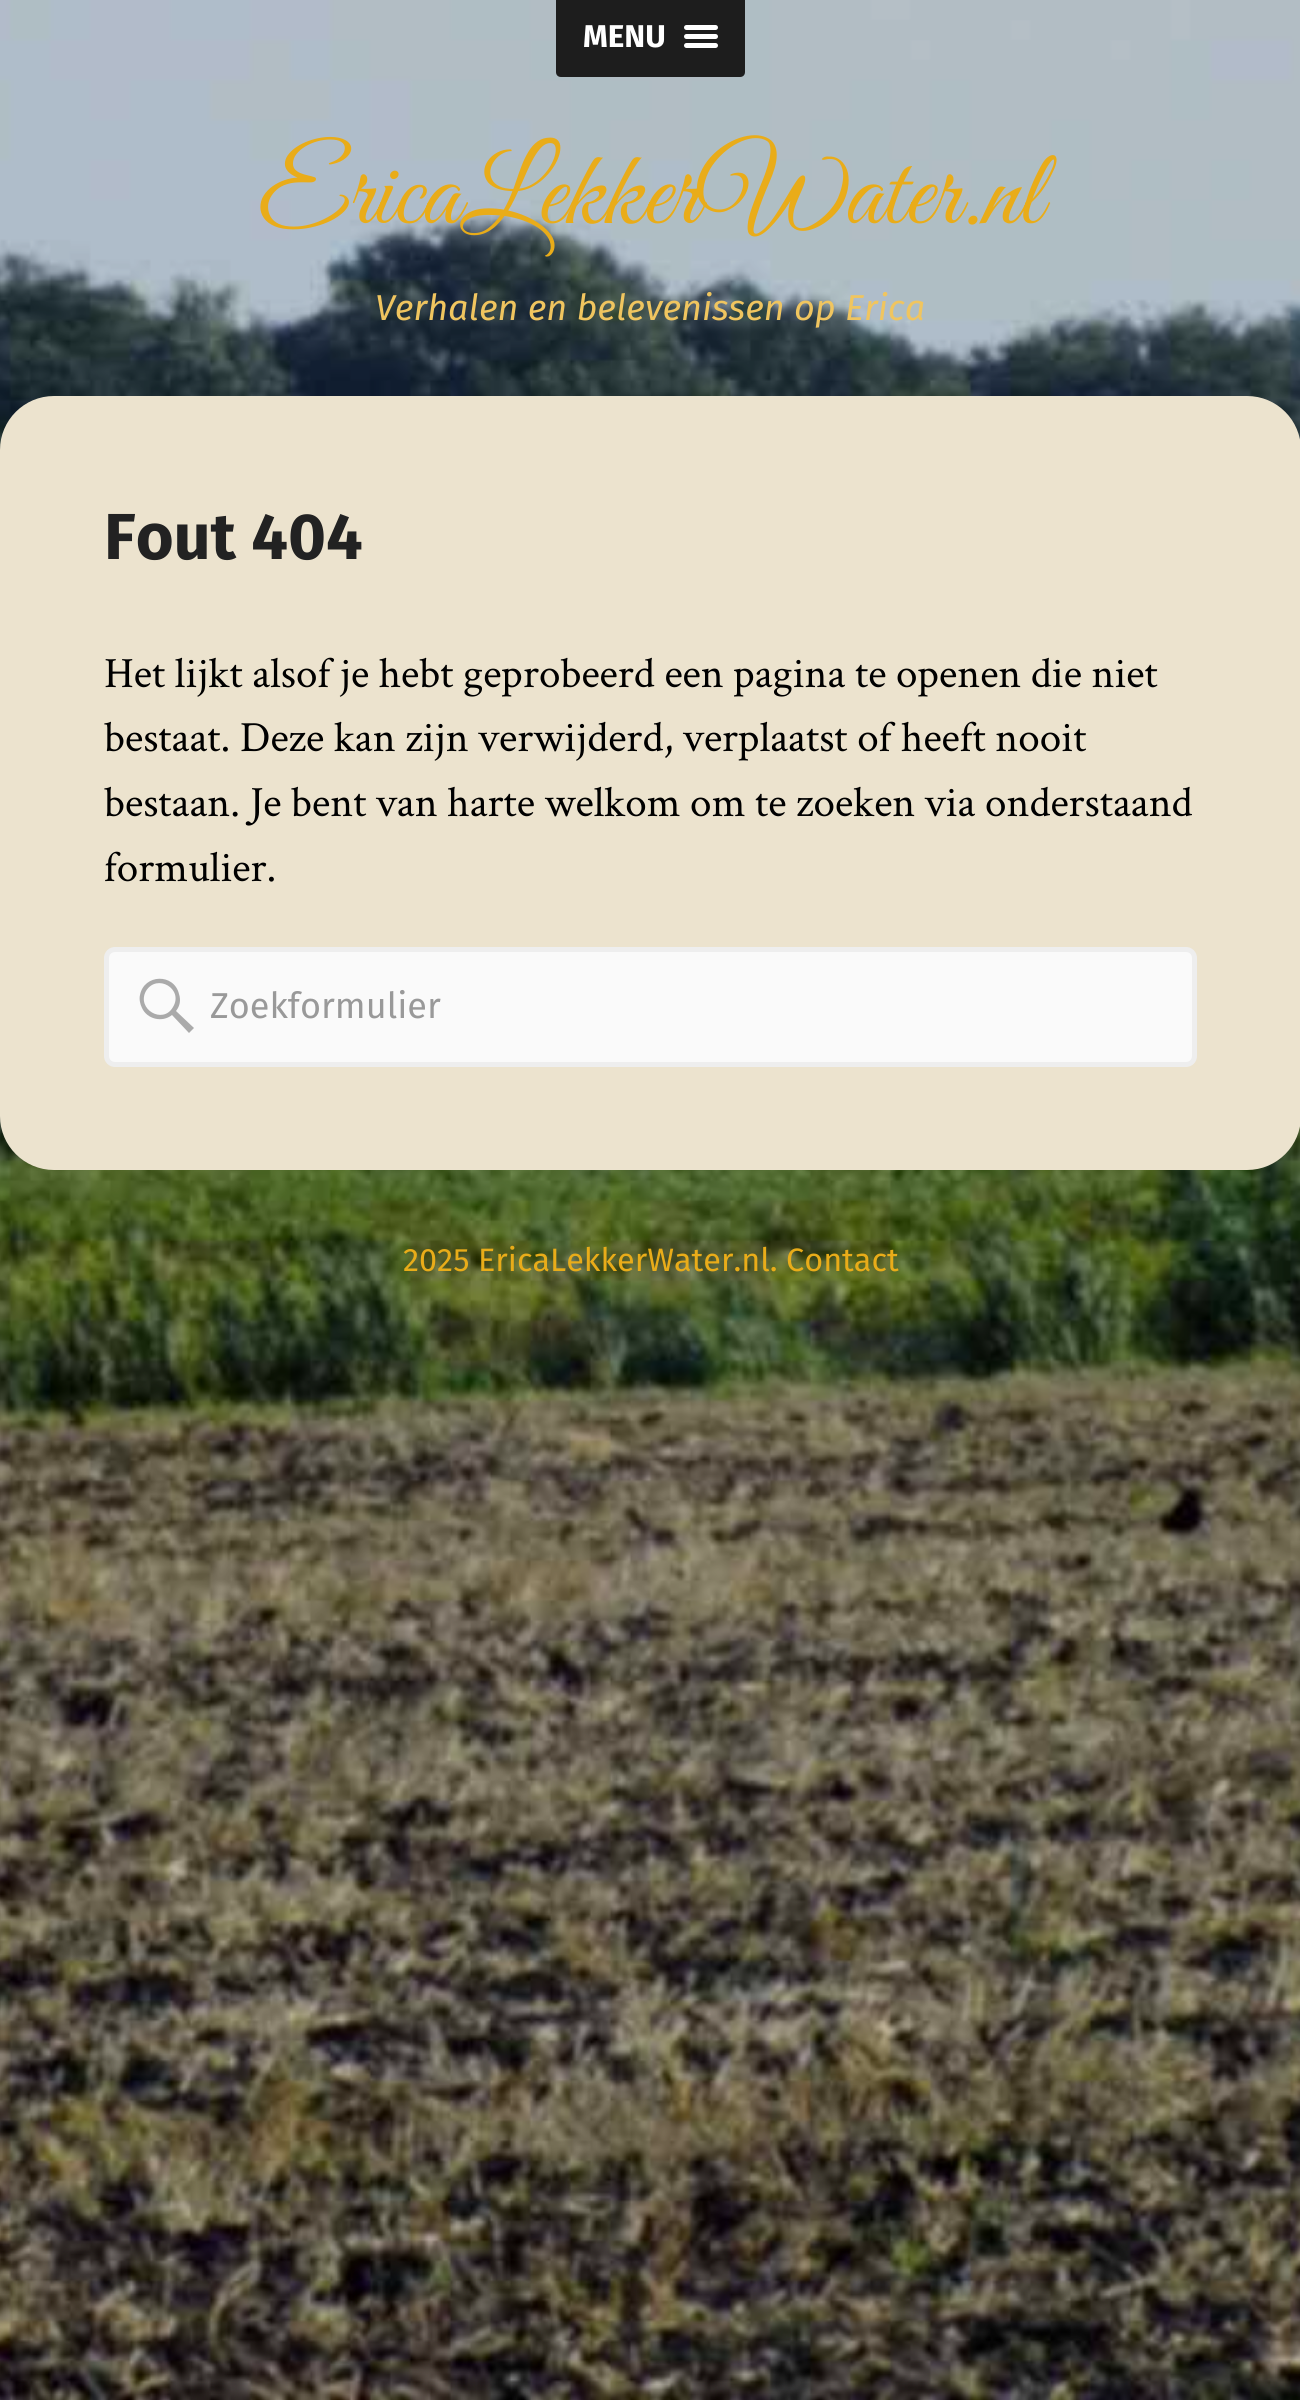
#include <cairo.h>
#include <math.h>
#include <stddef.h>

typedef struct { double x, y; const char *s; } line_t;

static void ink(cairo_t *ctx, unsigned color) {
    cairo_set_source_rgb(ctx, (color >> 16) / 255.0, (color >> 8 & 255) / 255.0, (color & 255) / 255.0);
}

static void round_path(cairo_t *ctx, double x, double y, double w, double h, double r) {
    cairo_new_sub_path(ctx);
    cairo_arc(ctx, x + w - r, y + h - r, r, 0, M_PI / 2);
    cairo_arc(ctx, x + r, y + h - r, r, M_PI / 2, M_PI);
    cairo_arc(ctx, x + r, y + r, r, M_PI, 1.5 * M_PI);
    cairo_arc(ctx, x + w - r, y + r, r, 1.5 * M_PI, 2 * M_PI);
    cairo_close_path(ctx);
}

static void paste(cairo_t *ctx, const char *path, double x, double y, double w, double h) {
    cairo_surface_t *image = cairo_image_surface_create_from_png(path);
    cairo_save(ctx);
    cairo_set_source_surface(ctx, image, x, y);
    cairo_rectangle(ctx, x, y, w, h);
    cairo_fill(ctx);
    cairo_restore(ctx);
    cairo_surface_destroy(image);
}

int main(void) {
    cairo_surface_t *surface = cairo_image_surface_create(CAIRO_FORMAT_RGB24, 1300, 2400);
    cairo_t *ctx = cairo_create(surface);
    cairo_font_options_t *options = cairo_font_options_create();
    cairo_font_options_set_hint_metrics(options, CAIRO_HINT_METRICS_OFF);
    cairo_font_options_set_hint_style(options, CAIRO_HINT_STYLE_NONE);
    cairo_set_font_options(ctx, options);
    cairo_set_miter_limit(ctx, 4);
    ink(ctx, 0xFFFFFF);
    cairo_paint(ctx);
    paste(ctx, "media/1.png", 0, 0, 1300, 2400);
    ink(ctx, 0x1D1D1D);
    cairo_new_path(ctx);
    cairo_move_to(ctx, 556, 0);
    cairo_line_to(ctx, 745, 0);
    cairo_line_to(ctx, 745, 72);
    cairo_curve_to(ctx, 745, 75, 743, 77, 740, 77);
    cairo_line_to(ctx, 561, 77);
    cairo_curve_to(ctx, 558, 77, 556, 75, 556, 72);
    cairo_close_path(ctx);
    cairo_fill(ctx);
    cairo_select_font_face(ctx, "Fira Sans", CAIRO_FONT_SLANT_NORMAL, CAIRO_FONT_WEIGHT_BOLD);
    cairo_set_font_size(ctx, 31.5);
    ink(ctx, 0xFFFFFF);
    cairo_move_to(ctx, 583, 47);
    cairo_show_text(ctx, "MENU");
    round_path(ctx, 684, 25, 34, 5, 2.5);
    cairo_fill(ctx);
    round_path(ctx, 684, 34, 34, 5, 2.5);
    cairo_fill(ctx);
    round_path(ctx, 684, 43, 34, 5, 2.5);
    cairo_fill(ctx);
    cairo_select_font_face(ctx, "Great Vibes", CAIRO_FONT_SLANT_NORMAL, CAIRO_FONT_WEIGHT_NORMAL);
    cairo_set_font_size(ctx, 108);
    ink(ctx, 0xE9AC19);
    cairo_move_to(ctx, 258, 223);
    cairo_show_text(ctx, "EricaLekkerWater.nl");
    cairo_select_font_face(ctx, "Fira Sans", CAIRO_FONT_SLANT_ITALIC, CAIRO_FONT_WEIGHT_NORMAL);
    cairo_set_font_size(ctx, 36);
    ink(ctx, 0xF0C55F);
    cairo_move_to(ctx, 375, 320);
    cairo_show_text(ctx, "Verhalen en belevenissen op Erica");
    ink(ctx, 0xECE3CE);
    round_path(ctx, 0, 396, 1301, 774, 54);
    cairo_fill(ctx);
    cairo_select_font_face(ctx, "Fira Sans", CAIRO_FONT_SLANT_NORMAL, CAIRO_FONT_WEIGHT_BOLD);
    cairo_set_font_size(ctx, 65);
    ink(ctx, 0x222222);
    cairo_move_to(ctx, 104, 559);
    cairo_show_text(ctx, "Fout 404");
    cairo_select_font_face(ctx, "Crimson Text", CAIRO_FONT_SLANT_NORMAL, CAIRO_FONT_WEIGHT_NORMAL);
    cairo_set_font_size(ctx, 43.2);
    ink(ctx, 0x000000);
    {
        static const line_t items[] = {
            {104, 687, "Het lijkt alsof je hebt geprobeerd een pagina te openen die niet"},
            {104, 751, "bestaat. Deze kan zijn verwijderd, verplaatst of heeft nooit"},
            {104, 816, "bestaan. Je bent van harte welkom om te zoeken via onderstaand"},
            {104, 881, "formulier."},
        };
        for (size_t i = 0; i < sizeof items / sizeof *items; i++) {
            cairo_move_to(ctx, items[i].x, items[i].y);
            cairo_show_text(ctx, items[i].s);
        }
    }
    ink(ctx, 0xFAFAFA);
    round_path(ctx, 106.5, 949.5, 1088, 115, 8.5);
    cairo_fill_preserve(ctx);
    ink(ctx, 0xEEEEEE);
    cairo_set_line_width(ctx, 5);
    cairo_stroke(ctx);
    ink(ctx, 0xAAAAAA);
    cairo_new_path(ctx);
    cairo_move_to(ctx, 194, 1028);
    cairo_line_to(ctx, 189, 1033);
    cairo_line_to(ctx, 172, 1015);
    cairo_curve_to(ctx, 162, 1023, 147, 1019, 142, 1008);
    cairo_curve_to(ctx, 140, 1004, 139, 999, 140, 995);
    cairo_curve_to(ctx, 144, 974, 174, 973, 179, 994);
    cairo_curve_to(ctx, 181, 1000, 180, 1006, 176, 1011);
    cairo_close_path(ctx);
    cairo_move_to(ctx, 146, 991);
    cairo_curve_to(ctx, 136, 1009, 163, 1025, 173, 1007);
    cairo_curve_to(ctx, 184, 989, 157, 973, 146, 991);
    cairo_close_path(ctx);
    cairo_fill(ctx);
    cairo_select_font_face(ctx, "Fira Sans", CAIRO_FONT_SLANT_NORMAL, CAIRO_FONT_WEIGHT_NORMAL);
    cairo_set_font_size(ctx, 36);
    ink(ctx, 0x999999);
    cairo_move_to(ctx, 210, 1018);
    cairo_show_text(ctx, "Zoekformulier");
    cairo_set_font_size(ctx, 32.4);
    ink(ctx, 0xE9AC19);
    cairo_move_to(ctx, 403, 1271);
    cairo_show_text(ctx, "2025 EricaLekkerWater.nl. Contact");
    cairo_surface_write_to_png(surface, "image.png");
    cairo_font_options_destroy(options);
    cairo_destroy(ctx);
    cairo_surface_destroy(surface);
    return 0;
}
